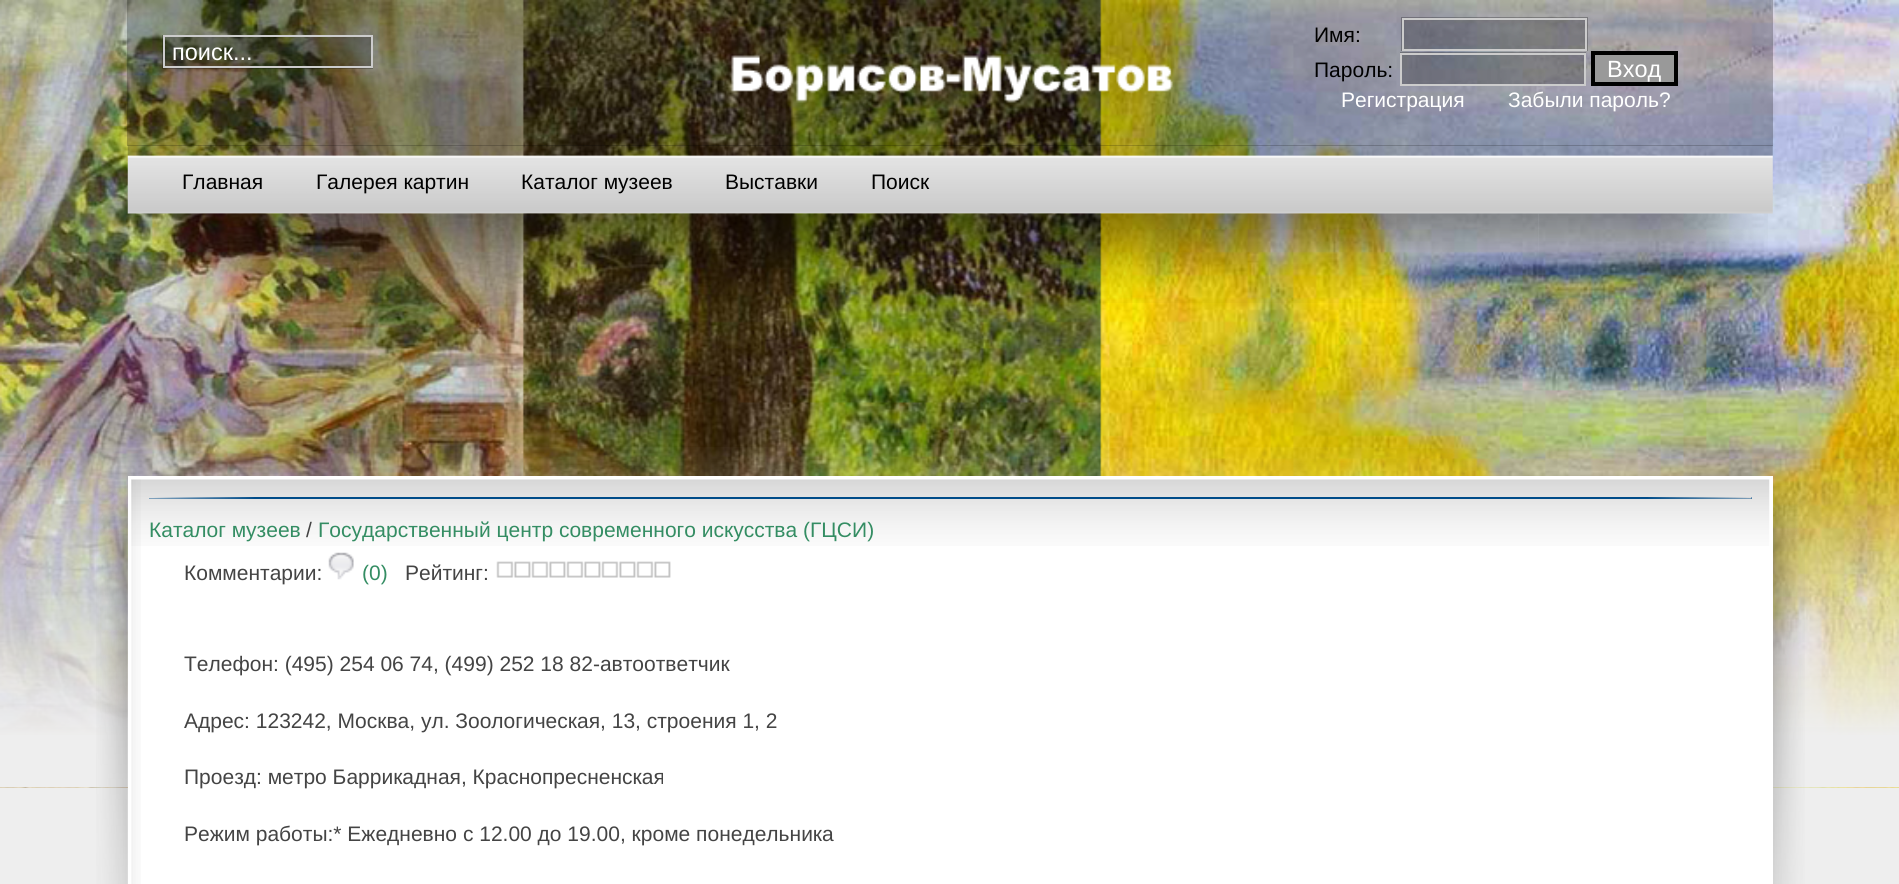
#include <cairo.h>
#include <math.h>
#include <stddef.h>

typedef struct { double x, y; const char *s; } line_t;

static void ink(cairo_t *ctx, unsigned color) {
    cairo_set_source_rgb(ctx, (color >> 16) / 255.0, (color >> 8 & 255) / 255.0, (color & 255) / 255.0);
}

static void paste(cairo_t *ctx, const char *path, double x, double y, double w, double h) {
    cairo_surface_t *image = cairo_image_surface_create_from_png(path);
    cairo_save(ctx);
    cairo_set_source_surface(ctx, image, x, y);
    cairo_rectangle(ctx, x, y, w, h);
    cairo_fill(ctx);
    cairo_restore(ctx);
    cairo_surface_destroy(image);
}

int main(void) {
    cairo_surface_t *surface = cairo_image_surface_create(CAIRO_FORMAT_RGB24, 1899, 884);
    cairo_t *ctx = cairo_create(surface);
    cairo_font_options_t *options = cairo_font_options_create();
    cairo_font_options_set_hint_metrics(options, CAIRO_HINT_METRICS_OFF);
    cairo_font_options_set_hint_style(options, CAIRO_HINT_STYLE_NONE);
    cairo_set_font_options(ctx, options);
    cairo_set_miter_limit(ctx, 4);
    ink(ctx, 0xEEEEEE);
    cairo_paint(ctx);
    ink(ctx, 0xE9E9E9);
    cairo_rectangle(ctx, 0, 787, 1899, 1);
    cairo_fill(ctx);
    paste(ctx, "media/1.png", 0, 0, 1899, 788);
    paste(ctx, "media/2.png", 0, 447, 1899, 341);
    cairo_set_source_rgba(ctx, 0, 0, 0, 0.25);
    cairo_rectangle(ctx, 127, 0, 1646, 146);
    cairo_fill(ctx);
    paste(ctx, "media/3.png", 731, 55, 442, 48);
    cairo_rectangle(ctx, 162, 35, 211, 34);
    cairo_fill(ctx);
    cairo_rectangle(ctx, 164, 36, 208, 31);
    ink(ctx, 0xCCCCCC);
    cairo_stroke(ctx);
    cairo_select_font_face(ctx, "Liberation Sans", CAIRO_FONT_SLANT_NORMAL, CAIRO_FONT_WEIGHT_NORMAL);
    cairo_set_font_size(ctx, 23.5);
    ink(ctx, 0xFFFFFF);
    cairo_move_to(ctx, 172, 60);
    cairo_show_text(ctx, "поиск...");
    cairo_set_font_size(ctx, 21);
    ink(ctx, 0x000000);
    cairo_move_to(ctx, 1314, 42);
    cairo_show_text(ctx, "Имя:");
    cairo_set_source_rgba(ctx, 0, 0, 0, 0.25);
    cairo_rectangle(ctx, 1401, 17, 187, 34);
    cairo_fill(ctx);
    cairo_rectangle(ctx, 1403, 19, 183, 31);
    ink(ctx, 0xCCCCCC);
    cairo_stroke(ctx);
    ink(ctx, 0x000000);
    cairo_move_to(ctx, 1314, 77);
    cairo_show_text(ctx, "Пароль:");
    cairo_set_source_rgba(ctx, 0, 0, 0, 0.25);
    cairo_rectangle(ctx, 1400, 52, 186, 32);
    cairo_fill(ctx);
    cairo_rectangle(ctx, 1401, 54, 184, 31);
    ink(ctx, 0xCCCCCC);
    cairo_stroke(ctx);
    ink(ctx, 0x999999);
    cairo_rectangle(ctx, 1593, 53, 83, 31);
    cairo_fill_preserve(ctx);
    ink(ctx, 0x000000);
    cairo_set_line_width(ctx, 4);
    cairo_stroke(ctx);
    cairo_set_font_size(ctx, 23.5);
    ink(ctx, 0xFFFFFF);
    cairo_move_to(ctx, 1607, 77);
    cairo_show_text(ctx, "Вход");
    cairo_set_font_size(ctx, 21);
    cairo_move_to(ctx, 1341, 107);
    cairo_show_text(ctx, "Регистрация");
    cairo_move_to(ctx, 1508, 107);
    cairo_show_text(ctx, "Забыли пароль?");
    paste(ctx, "media/4.png", 127, 145, 1646, 69);
    ink(ctx, 0x000000);
    {
        static const line_t items[] = {
            {182, 189, "Главная"},
            {316, 189, "Галерея картин"},
            {521, 189, "Каталог музеев"},
            {725, 189, "Выставки"},
            {871, 189, "Поиск"},
        };
        for (size_t i = 0; i < sizeof items / sizeof *items; i++) {
            cairo_move_to(ctx, items[i].x, items[i].y);
            cairo_show_text(ctx, items[i].s);
        }
    }
    paste(ctx, "media/5.png", 137, 213, 226, 89);
    paste(ctx, "media/7.png", 1538, 213, 230, 89);
    paste(ctx, "media/6.png", 362, 213, 1177, 90);
    paste(ctx, "media/8.png", 96, 486, 32, 398);
    paste(ctx, "media/9.png", 1773, 486, 32, 398);
    ink(ctx, 0xFFFFFF);
    cairo_rectangle(ctx, 128, 476, 1645, 408);
    cairo_fill(ctx);
    paste(ctx, "media/10.png", 131, 479, 1639, 67);
    paste(ctx, "media/11.png", 131, 479, 10, 405);
    ink(ctx, 0x004C89);
    cairo_rectangle(ctx, 149, 497, 1603, 2);
    cairo_fill(ctx);
    paste(ctx, "media/12.png", 149, 497, 105, 2);
    paste(ctx, "media/13.png", 1648, 497, 104, 2);
    ink(ctx, 0x348D63);
    cairo_move_to(ctx, 149, 537);
    cairo_show_text(ctx, "Каталог музеев");
    ink(ctx, 0x444444);
    cairo_move_to(ctx, 306, 537);
    cairo_show_text(ctx, "/");
    ink(ctx, 0x348D63);
    cairo_move_to(ctx, 318, 537);
    cairo_show_text(ctx, "Государственный центр современного искусства (ГЦСИ)");
    ink(ctx, 0x444444);
    cairo_move_to(ctx, 184, 580);
    cairo_show_text(ctx, "Комментарии:");
    paste(ctx, "media/14.png", 328, 552, 26, 28);
    ink(ctx, 0x348D63);
    cairo_move_to(ctx, 362, 580);
    cairo_show_text(ctx, "(0)");
    ink(ctx, 0x444444);
    cairo_move_to(ctx, 405, 580);
    cairo_show_text(ctx, "Рейтинг:");
    paste(ctx, "media/15.png", 496, 561, 175, 17);
    {
        static const line_t items[] = {
            {184, 671, "Телефон: (495) 254 06 74, (499) 252 18 82-автоответчик"},
            {184, 728, "Адрес: 123242, Москва, ул. Зоологическая, 13, строения 1, 2"},
            {184, 784, "Проезд: метро Баррикадная, Краснопресненская"},
            {184, 841, "Режим работы:* Ежедневно с 12.00 до 19.00, кроме понедельника"},
        };
        for (size_t i = 0; i < sizeof items / sizeof *items; i++) {
            cairo_move_to(ctx, items[i].x, items[i].y);
            cairo_show_text(ctx, items[i].s);
        }
    }
    cairo_surface_write_to_png(surface, "image.png");
    cairo_font_options_destroy(options);
    cairo_destroy(ctx);
    cairo_surface_destroy(surface);
    return 0;
}
